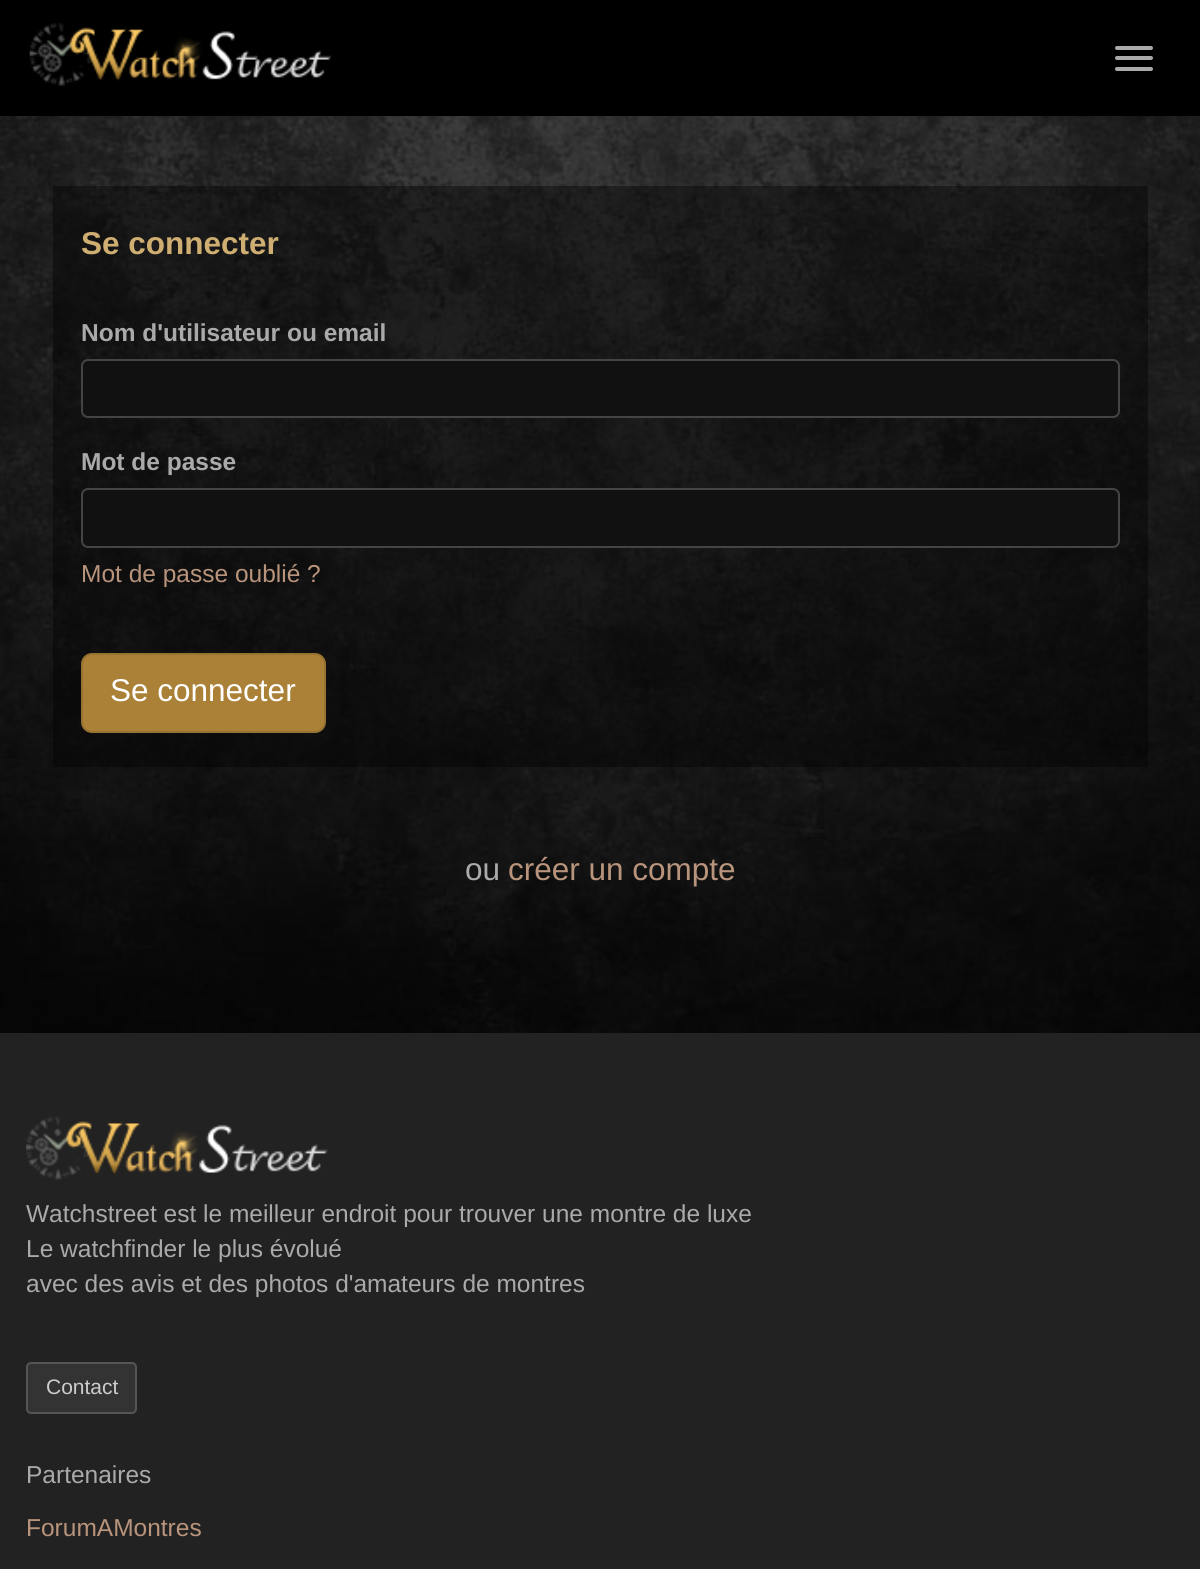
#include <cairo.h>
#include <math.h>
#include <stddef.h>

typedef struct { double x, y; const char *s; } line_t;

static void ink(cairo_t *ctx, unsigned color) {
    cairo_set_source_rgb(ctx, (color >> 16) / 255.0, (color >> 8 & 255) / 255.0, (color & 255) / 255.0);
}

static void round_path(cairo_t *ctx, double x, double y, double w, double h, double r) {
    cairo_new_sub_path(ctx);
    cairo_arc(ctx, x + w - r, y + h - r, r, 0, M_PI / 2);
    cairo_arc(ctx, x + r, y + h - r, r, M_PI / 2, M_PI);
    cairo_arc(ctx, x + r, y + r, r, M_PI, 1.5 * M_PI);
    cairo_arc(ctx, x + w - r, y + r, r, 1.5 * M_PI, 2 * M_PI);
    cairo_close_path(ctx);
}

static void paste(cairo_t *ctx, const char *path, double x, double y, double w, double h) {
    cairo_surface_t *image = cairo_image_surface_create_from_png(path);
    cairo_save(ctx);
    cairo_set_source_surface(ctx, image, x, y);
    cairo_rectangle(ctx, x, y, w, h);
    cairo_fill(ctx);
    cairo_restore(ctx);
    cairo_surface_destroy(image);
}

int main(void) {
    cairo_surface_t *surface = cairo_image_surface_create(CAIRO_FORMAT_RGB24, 1200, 1569);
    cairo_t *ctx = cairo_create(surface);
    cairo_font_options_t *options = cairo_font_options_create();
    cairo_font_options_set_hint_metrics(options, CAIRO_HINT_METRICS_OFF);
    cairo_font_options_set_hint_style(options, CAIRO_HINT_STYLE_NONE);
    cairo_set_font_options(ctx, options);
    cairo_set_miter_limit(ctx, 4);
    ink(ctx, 0xFFFFFF);
    cairo_paint(ctx);
    paste(ctx, "media/1.png", 0, 116, 1200, 917);
    ink(ctx, 0x000000);
    cairo_rectangle(ctx, 0, 0, 1200, 116);
    cairo_fill(ctx);
    paste(ctx, "media/2.png", 29, 23, 302, 63);
    ink(ctx, 0xAAAAAA);
    round_path(ctx, 1115, 46, 38, 4, 2);
    cairo_fill(ctx);
    round_path(ctx, 1115, 56, 38, 4, 2);
    cairo_fill(ctx);
    round_path(ctx, 1115, 67, 38, 4, 2);
    cairo_fill(ctx);
    cairo_set_source_rgba(ctx, 0, 0, 0, 0.4);
    cairo_rectangle(ctx, 53, 186, 1095, 581);
    cairo_fill(ctx);
    cairo_select_font_face(ctx, "Liberation Sans", CAIRO_FONT_SLANT_NORMAL, CAIRO_FONT_WEIGHT_BOLD);
    cairo_set_font_size(ctx, 31.5);
    ink(ctx, 0xCFAE72);
    cairo_move_to(ctx, 81, 254);
    cairo_show_text(ctx, "Se connecter");
    cairo_set_font_size(ctx, 24.5);
    ink(ctx, 0xAAAAAA);
    cairo_move_to(ctx, 81, 341);
    cairo_show_text(ctx, "Nom d'utilisateur ou email");
    ink(ctx, 0x111111);
    round_path(ctx, 82, 360, 1037, 57, 6);
    cairo_fill_preserve(ctx);
    ink(ctx, 0x444444);
    cairo_stroke(ctx);
    ink(ctx, 0xAAAAAA);
    cairo_move_to(ctx, 81, 470);
    cairo_show_text(ctx, "Mot de passe");
    ink(ctx, 0x111111);
    round_path(ctx, 82, 489, 1037, 58, 6);
    cairo_fill_preserve(ctx);
    ink(ctx, 0x444444);
    cairo_stroke(ctx);
    cairo_select_font_face(ctx, "Liberation Sans", CAIRO_FONT_SLANT_NORMAL, CAIRO_FONT_WEIGHT_NORMAL);
    ink(ctx, 0xB9947C);
    cairo_move_to(ctx, 81, 582);
    cairo_show_text(ctx, "Mot de passe oublié ?");
    ink(ctx, 0xAA8137);
    round_path(ctx, 82, 654, 243, 78, 10);
    cairo_fill_preserve(ctx);
    ink(ctx, 0x977231);
    cairo_stroke(ctx);
    cairo_set_font_size(ctx, 31.5);
    ink(ctx, 0xFFFFFF);
    cairo_move_to(ctx, 110, 701);
    cairo_show_text(ctx, "Se connecter");
    ink(ctx, 0xAAAAAA);
    cairo_move_to(ctx, 465, 880);
    cairo_show_text(ctx, "ou");
    ink(ctx, 0xB9947C);
    cairo_move_to(ctx, 508, 880);
    cairo_show_text(ctx, "créer un compte");
    ink(ctx, 0x222222);
    cairo_rectangle(ctx, 0, 1033, 1200, 536);
    cairo_fill(ctx);
    paste(ctx, "media/3.png", 26, 1116, 302, 64);
    cairo_set_font_size(ctx, 24.5);
    ink(ctx, 0xAAAAAA);
    {
        static const line_t items[] = {
            {26, 1222, "Watchstreet est le meilleur endroit pour trouver une montre de luxe"},
            {26, 1257, "Le watchfinder le plus évolué"},
            {26, 1292, "avec des avis et des photos d'amateurs de montres"},
        };
        for (size_t i = 0; i < sizeof items / sizeof *items; i++) {
            cairo_move_to(ctx, items[i].x, items[i].y);
            cairo_show_text(ctx, items[i].s);
        }
    }
    ink(ctx, 0x333333);
    round_path(ctx, 27, 1363, 109, 50, 4);
    cairo_fill_preserve(ctx);
    ink(ctx, 0x555555);
    cairo_stroke(ctx);
    cairo_set_font_size(ctx, 21);
    ink(ctx, 0xCCCCCC);
    cairo_move_to(ctx, 46, 1394);
    cairo_show_text(ctx, "Contact");
    cairo_set_font_size(ctx, 24.5);
    ink(ctx, 0xAAAAAA);
    cairo_move_to(ctx, 26, 1483);
    cairo_show_text(ctx, "Partenaires");
    ink(ctx, 0xB9947C);
    cairo_move_to(ctx, 26, 1536);
    cairo_show_text(ctx, "ForumAMontres");
    cairo_surface_write_to_png(surface, "image.png");
    cairo_font_options_destroy(options);
    cairo_destroy(ctx);
    cairo_surface_destroy(surface);
    return 0;
}
